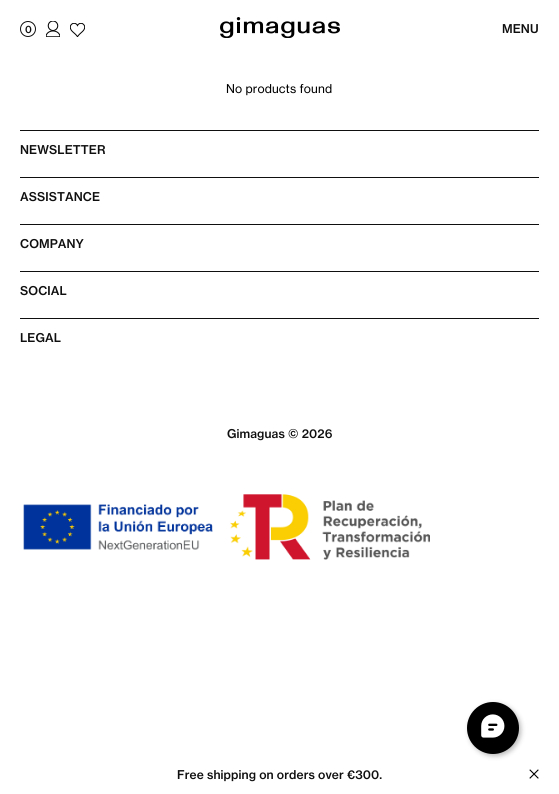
#include <cairo.h>
#include <math.h>
#include <stddef.h>


static void ink(cairo_t *ctx, unsigned color) {
    cairo_set_source_rgb(ctx, (color >> 16) / 255.0, (color >> 8 & 255) / 255.0, (color & 255) / 255.0);
}

static void write_spaced(cairo_t *ctx, double x, double y, const char *s, double letter, double word) {
    cairo_move_to(ctx, x, y);
    while (*s) {
        char ch[5] = {0};
        int n = 0;
        do ch[n++] = *s++; while ((*s & 0xC0) == 0x80);
        cairo_show_text(ctx, ch);
        cairo_rel_move_to(ctx, letter + word * (*ch == ' '), 0);
    }
}

static void round_path(cairo_t *ctx, double x, double y, double w, double h, double r) {
    cairo_new_sub_path(ctx);
    cairo_arc(ctx, x + w - r, y + h - r, r, 0, M_PI / 2);
    cairo_arc(ctx, x + r, y + h - r, r, M_PI / 2, M_PI);
    cairo_arc(ctx, x + r, y + r, r, M_PI, 1.5 * M_PI);
    cairo_arc(ctx, x + w - r, y + r, r, 1.5 * M_PI, 2 * M_PI);
    cairo_close_path(ctx);
}

static void blur_box(cairo_t *ctx, double x, double y, double w, double h, double r, double blur, double alpha) {
    cairo_push_group_with_content(ctx, CAIRO_CONTENT_ALPHA);
    cairo_set_operator(ctx, CAIRO_OPERATOR_SOURCE);
    for (int i = 15; i >= -15 && fmin(w, h) + blur * i / 3 > 0; i -= 2) {
        double e = blur * i / 6;
        cairo_set_source_rgba(ctx, 0, 0, 0, alpha * erfc((i - 1) / 8.5) / 2);
        round_path(ctx, x - e, y - e, w + 2 * e, h + 2 * e, fmax(0, fmin(r + e + blur * .6, fmin(w, h) / 2 + e)));
        cairo_fill(ctx);
    }
    cairo_pattern_t *soft = cairo_pop_group(ctx);
    cairo_mask(ctx, soft);
    cairo_pattern_destroy(soft);
}

static void paste(cairo_t *ctx, const char *path, double x, double y, double w, double h) {
    cairo_surface_t *image = cairo_image_surface_create_from_png(path);
    cairo_save(ctx);
    cairo_set_source_surface(ctx, image, x, y);
    cairo_rectangle(ctx, x, y, w, h);
    cairo_fill(ctx);
    cairo_restore(ctx);
    cairo_surface_destroy(image);
}

int main(void) {
    cairo_surface_t *surface = cairo_image_surface_create(CAIRO_FORMAT_RGB24, 559, 794);
    cairo_t *ctx = cairo_create(surface);
    cairo_font_options_t *options = cairo_font_options_create();
    cairo_font_options_set_hint_metrics(options, CAIRO_HINT_METRICS_OFF);
    cairo_font_options_set_hint_style(options, CAIRO_HINT_STYLE_NONE);
    cairo_set_font_options(ctx, options);
    cairo_set_miter_limit(ctx, 4);
    ink(ctx, 0xFFFFFF);
    cairo_paint(ctx);
    paste(ctx, "media/1.png", 220, 17, 120, 21);
    cairo_arc(ctx, 28, 29, 7.5, 0, 2 * M_PI);
    ink(ctx, 0x0F0F0F);
    cairo_set_line_width(ctx, 1);
    cairo_stroke(ctx);
    cairo_select_font_face(ctx, "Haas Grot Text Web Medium", CAIRO_FONT_SLANT_NORMAL, CAIRO_FONT_WEIGHT_NORMAL);
    cairo_set_font_size(ctx, 10);
    write_spaced(ctx, 25, 33, "0", 0.1, 0);
    paste(ctx, "media/2.png", 46, 21, 14, 16);
    paste(ctx, "media/3.png", 70, 23, 15, 14);
    cairo_set_font_size(ctx, 12);
    write_spaced(ctx, 502, 33, "MENU", 0.1, 0);
    cairo_select_font_face(ctx, "Haas Grot Text Web", CAIRO_FONT_SLANT_NORMAL, CAIRO_FONT_WEIGHT_NORMAL);
    ink(ctx, 0x000000);
    write_spaced(ctx, 226, 93, "No products found", 0.1, 0);
    ink(ctx, 0x0F0F0F);
    cairo_rectangle(ctx, 20, 130, 519, 1);
    cairo_fill(ctx);
    cairo_select_font_face(ctx, "Haas Grot Text Web Medium", CAIRO_FONT_SLANT_NORMAL, CAIRO_FONT_WEIGHT_NORMAL);
    write_spaced(ctx, 20, 154, "NEWSLETTER", 0.1, 0);
    cairo_rectangle(ctx, 20, 177, 519, 1);
    cairo_fill(ctx);
    write_spaced(ctx, 20, 201, "ASSISTANCE", 0.1, 0);
    cairo_rectangle(ctx, 20, 224, 519, 1);
    cairo_fill(ctx);
    write_spaced(ctx, 20, 248, "COMPANY", 0.1, 0);
    cairo_rectangle(ctx, 20, 271, 519, 1);
    cairo_fill(ctx);
    write_spaced(ctx, 20, 295, "SOCIAL", 0.1, 0);
    cairo_rectangle(ctx, 20, 318, 519, 1);
    cairo_fill(ctx);
    write_spaced(ctx, 20, 342, "LEGAL", 0.1, 0);
    write_spaced(ctx, 227, 438, "Gimaguas © 2026", 0.1, 0);
    paste(ctx, "media/4.png", 23, 504, 190, 46);
    paste(ctx, "media/5.png", 230, 494, 200, 66);
    ink(ctx, 0x000000);
    blur_box(ctx, 469, 704, 52, 52, 26, 2.5, 0.27);
    ink(ctx, 0x000000);
    cairo_arc(ctx, 493, 728, 26, 0, 2 * M_PI);
    cairo_fill(ctx);
    paste(ctx, "media/6.png", 481, 714, 24, 24);
    ink(ctx, 0x0F0F0F);
    write_spaced(ctx, 177, 779, "Free shipping on orders over €300.", 0.1, 0);
    paste(ctx, "media/7.png", 529, 769, 10, 10);
    cairo_surface_write_to_png(surface, "image.png");
    cairo_font_options_destroy(options);
    cairo_destroy(ctx);
    cairo_surface_destroy(surface);
    return 0;
}
